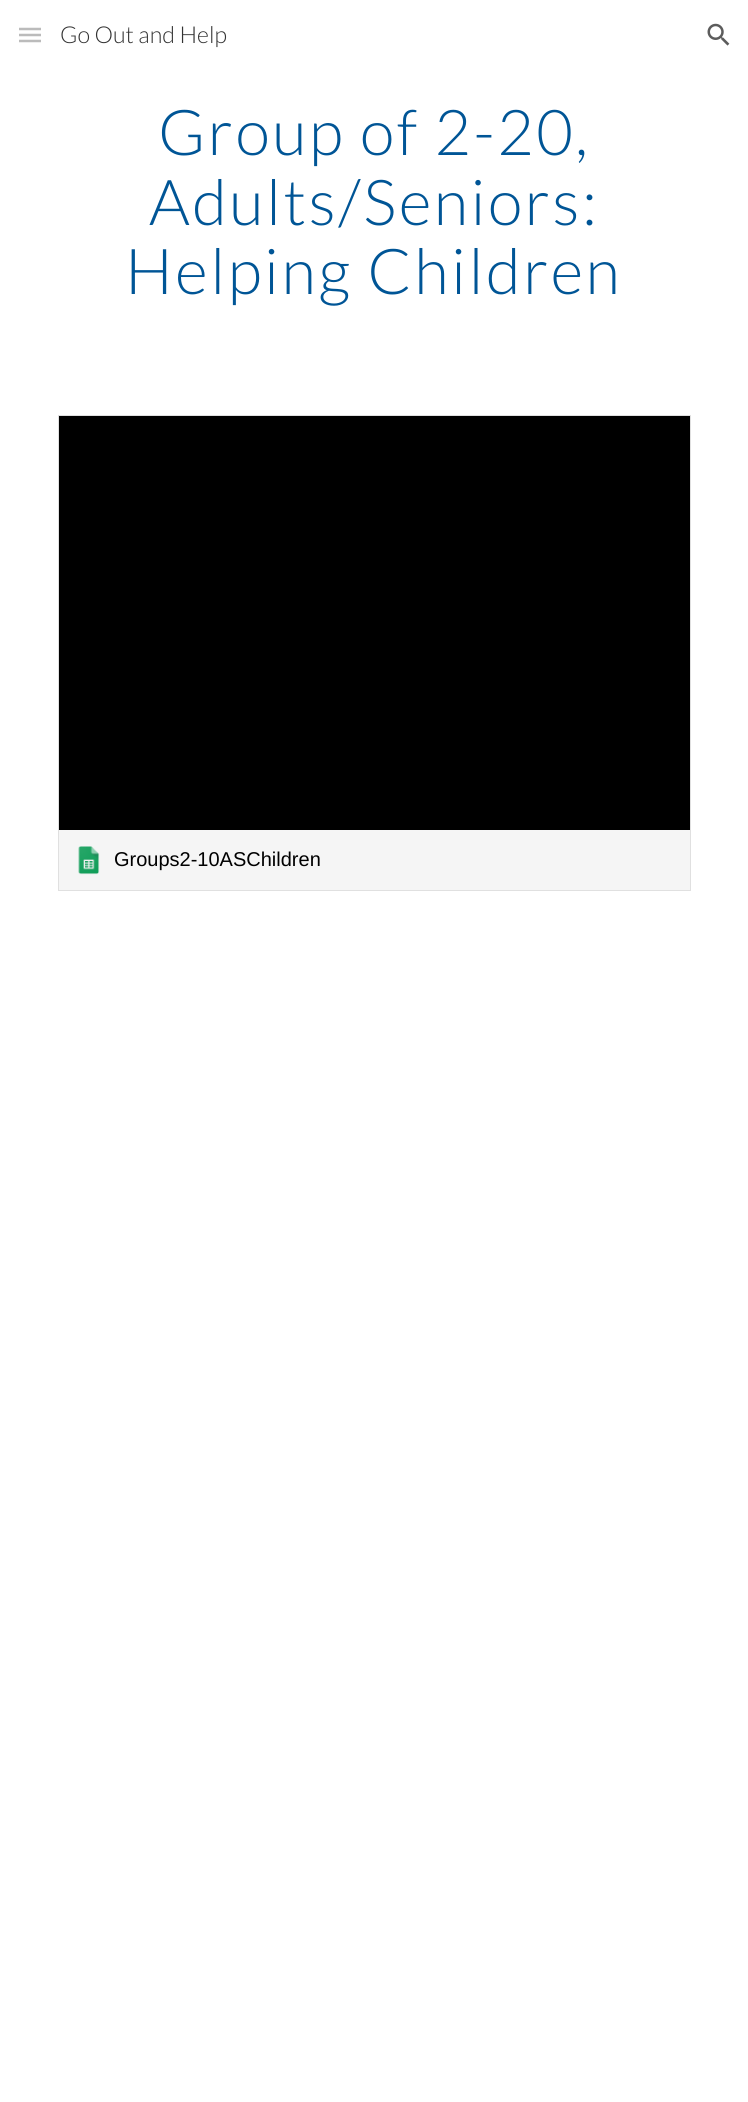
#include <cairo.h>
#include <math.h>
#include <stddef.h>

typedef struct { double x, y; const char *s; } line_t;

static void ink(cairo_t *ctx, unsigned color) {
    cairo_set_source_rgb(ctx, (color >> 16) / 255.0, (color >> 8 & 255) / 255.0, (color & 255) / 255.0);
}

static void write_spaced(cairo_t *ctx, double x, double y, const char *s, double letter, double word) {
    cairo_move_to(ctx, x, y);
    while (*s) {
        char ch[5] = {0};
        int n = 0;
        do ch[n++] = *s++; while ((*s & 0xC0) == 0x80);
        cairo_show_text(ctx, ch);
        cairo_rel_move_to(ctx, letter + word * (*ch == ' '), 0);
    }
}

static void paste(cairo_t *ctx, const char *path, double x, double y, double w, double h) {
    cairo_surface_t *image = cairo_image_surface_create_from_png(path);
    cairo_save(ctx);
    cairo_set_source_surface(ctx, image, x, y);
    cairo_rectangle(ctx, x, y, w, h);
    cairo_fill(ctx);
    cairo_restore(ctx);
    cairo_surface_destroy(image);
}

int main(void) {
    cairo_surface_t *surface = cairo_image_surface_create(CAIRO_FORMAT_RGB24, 748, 2102);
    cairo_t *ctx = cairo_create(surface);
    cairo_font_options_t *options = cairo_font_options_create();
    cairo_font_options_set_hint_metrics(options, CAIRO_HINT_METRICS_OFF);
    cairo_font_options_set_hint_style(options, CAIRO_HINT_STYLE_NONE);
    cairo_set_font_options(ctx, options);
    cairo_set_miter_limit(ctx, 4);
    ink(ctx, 0xFFFFFF);
    cairo_paint(ctx);
    cairo_new_path(ctx);
    cairo_move_to(ctx, 19, 29);
    cairo_line_to(ctx, 41, 29);
    cairo_move_to(ctx, 19, 35);
    cairo_line_to(ctx, 41, 35);
    cairo_move_to(ctx, 19, 41);
    cairo_line_to(ctx, 41, 41);
    ink(ctx, 0xBBBBBB);
    cairo_set_line_width(ctx, 2.5);
    cairo_stroke(ctx);
    cairo_select_font_face(ctx, "Lato Light", CAIRO_FONT_SLANT_NORMAL, CAIRO_FONT_WEIGHT_NORMAL);
    cairo_set_font_size(ctx, 23.25);
    ink(ctx, 0x333333);
    cairo_move_to(ctx, 60, 43);
    cairo_show_text(ctx, "Go Out and Help");
    paste(ctx, "media/1.png", 707, 23, 23, 23);
    cairo_set_font_size(ctx, 63.25);
    ink(ctx, 0x005596);
    {
        static const line_t items[] = {
            {158, 155, "Group of 2-20,"},
            {149, 225, "Adults/Seniors:"},
            {125, 294, "Helping Children"},
        };
        for (size_t i = 0; i < sizeof items / sizeof *items; i++) {
            write_spaced(ctx, items[i].x, items[i].y, items[i].s, 2.5, 0);
        }
    }
    cairo_rectangle(ctx, 58.5, 415.5, 632, 475);
    ink(ctx, 0xE0E0E0);
    cairo_set_line_width(ctx, 1);
    cairo_stroke(ctx);
    ink(ctx, 0x000000);
    cairo_rectangle(ctx, 59, 416, 631, 414);
    cairo_fill(ctx);
    ink(ctx, 0xF5F5F5);
    cairo_rectangle(ctx, 59, 830, 631, 60);
    cairo_fill(ctx);
    paste(ctx, "media/2.png", 78, 846, 22, 29);
    cairo_select_font_face(ctx, "Liberation Sans", CAIRO_FONT_SLANT_NORMAL, CAIRO_FONT_WEIGHT_NORMAL);
    cairo_set_font_size(ctx, 20);
    ink(ctx, 0x000000);
    cairo_move_to(ctx, 114, 866);
    cairo_show_text(ctx, "Groups2-10ASChildren");
    cairo_surface_write_to_png(surface, "image.png");
    cairo_font_options_destroy(options);
    cairo_destroy(ctx);
    cairo_surface_destroy(surface);
    return 0;
}
